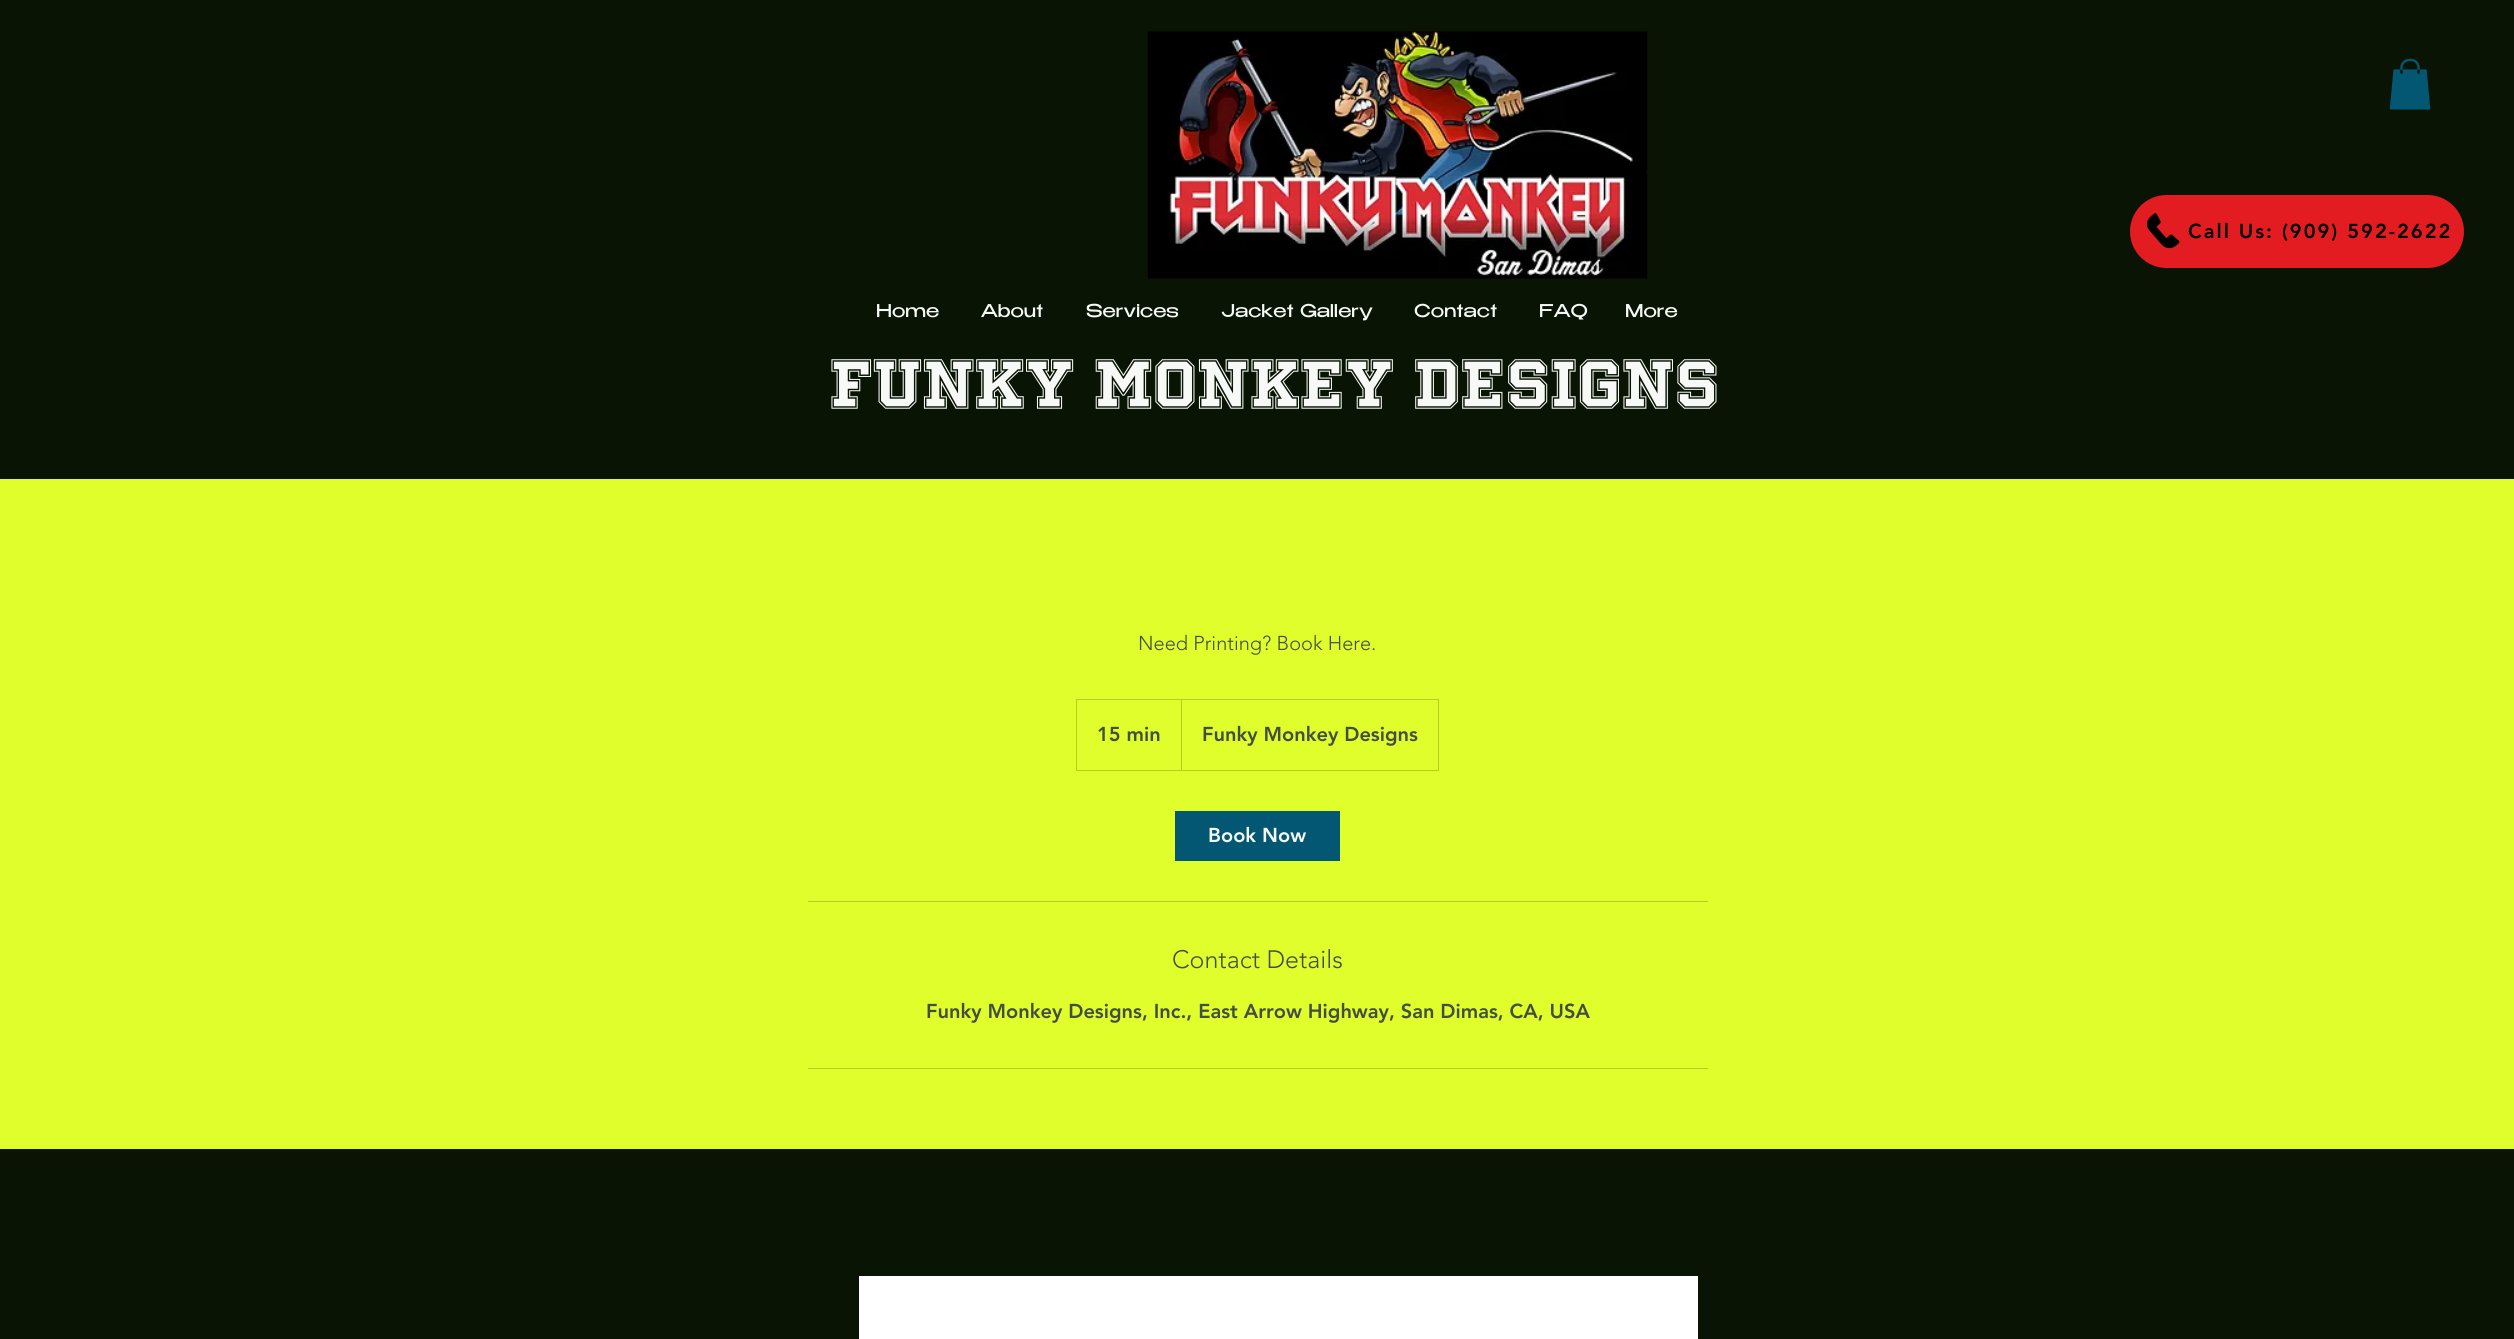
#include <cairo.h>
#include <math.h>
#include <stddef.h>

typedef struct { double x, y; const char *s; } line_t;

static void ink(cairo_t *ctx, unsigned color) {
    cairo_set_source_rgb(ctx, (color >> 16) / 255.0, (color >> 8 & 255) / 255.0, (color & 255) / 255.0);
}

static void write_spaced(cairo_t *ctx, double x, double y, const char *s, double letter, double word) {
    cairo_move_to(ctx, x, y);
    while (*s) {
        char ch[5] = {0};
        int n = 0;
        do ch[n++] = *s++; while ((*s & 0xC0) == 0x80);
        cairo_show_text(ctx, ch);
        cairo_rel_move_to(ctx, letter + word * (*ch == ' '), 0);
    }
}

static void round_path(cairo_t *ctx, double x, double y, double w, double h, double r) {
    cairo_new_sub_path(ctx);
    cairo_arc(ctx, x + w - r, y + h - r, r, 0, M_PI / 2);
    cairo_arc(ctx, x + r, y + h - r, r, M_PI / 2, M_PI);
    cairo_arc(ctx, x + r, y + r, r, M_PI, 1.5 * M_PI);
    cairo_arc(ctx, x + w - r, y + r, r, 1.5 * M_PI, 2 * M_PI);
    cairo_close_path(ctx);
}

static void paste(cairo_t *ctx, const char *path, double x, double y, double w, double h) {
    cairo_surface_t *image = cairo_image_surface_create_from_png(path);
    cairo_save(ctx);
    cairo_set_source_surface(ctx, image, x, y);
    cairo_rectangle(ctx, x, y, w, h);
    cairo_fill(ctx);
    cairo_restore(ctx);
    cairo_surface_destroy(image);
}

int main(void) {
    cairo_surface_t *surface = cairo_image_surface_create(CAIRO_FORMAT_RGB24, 2514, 1339);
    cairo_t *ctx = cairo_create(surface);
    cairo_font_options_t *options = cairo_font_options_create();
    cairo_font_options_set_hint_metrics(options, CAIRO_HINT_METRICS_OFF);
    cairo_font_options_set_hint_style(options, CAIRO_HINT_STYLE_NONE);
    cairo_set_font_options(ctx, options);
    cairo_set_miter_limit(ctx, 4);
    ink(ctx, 0x091405);
    cairo_paint(ctx);
    paste(ctx, "media/1.png", 1147, 31, 501, 248);
    paste(ctx, "media/2.png", 2389, 58, 42, 52);
    ink(ctx, 0xE21C21);
    round_path(ctx, 2130, 195, 334, 73, 36.5);
    cairo_fill(ctx);
    paste(ctx, "media/3.png", 2146, 213, 34, 36);
    cairo_select_font_face(ctx, "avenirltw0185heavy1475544 Black", CAIRO_FONT_SLANT_NORMAL, CAIRO_FONT_WEIGHT_NORMAL);
    cairo_set_font_size(ctx, 20);
    ink(ctx, 0x000000);
    write_spaced(ctx, 2188, 238, "Call Us: (909) 592-2622", 2, 0);
    cairo_select_font_face(ctx, "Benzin", CAIRO_FONT_SLANT_NORMAL, CAIRO_FONT_WEIGHT_NORMAL);
    cairo_set_font_size(ctx, 17.5);
    ink(ctx, 0xF6F9F5);
    {
        static const line_t items[] = {
            {876, 317, "Home"},
            {981, 317, "About"},
            {1086, 317, "Services"},
            {1221, 317, "Jacket Gallery"},
            {1414, 317, "Contact"},
            {1539, 317, "FAQ"},
            {1625, 317, "More"},
        };
        for (size_t i = 0; i < sizeof items / sizeof *items; i++) {
            cairo_move_to(ctx, items[i].x, items[i].y);
            cairo_show_text(ctx, items[i].s);
        }
    }
    cairo_select_font_face(ctx, "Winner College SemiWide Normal", CAIRO_FONT_SLANT_NORMAL, CAIRO_FONT_WEIGHT_NORMAL);
    cairo_set_font_size(ctx, 57.5);
    cairo_move_to(ctx, 830, 407);
    cairo_show_text(ctx, "Funky Monkey Designs");
    ink(ctx, 0xE0FD2C);
    cairo_rectangle(ctx, 0, 479, 2514, 670);
    cairo_fill(ctx);
    cairo_select_font_face(ctx, "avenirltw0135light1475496 Light", CAIRO_FONT_SLANT_NORMAL, CAIRO_FONT_WEIGHT_NORMAL);
    cairo_set_font_size(ctx, 20);
    ink(ctx, 0x444D41);
    cairo_move_to(ctx, 1138, 650);
    cairo_show_text(ctx, "Need Printing? Book Here.");
    cairo_rectangle(ctx, 1076.5, 699.5, 362, 71);
    ink(ctx, 0xB5CE24);
    cairo_set_line_width(ctx, 1);
    cairo_stroke(ctx);
    cairo_select_font_face(ctx, "avenirltw0185heavy1475544 Black", CAIRO_FONT_SLANT_NORMAL, CAIRO_FONT_WEIGHT_NORMAL);
    ink(ctx, 0x444D41);
    cairo_move_to(ctx, 1097, 741);
    cairo_show_text(ctx, "15 min");
    ink(ctx, 0xB5CE24);
    cairo_new_path(ctx);
    cairo_move_to(ctx, 1181, 770);
    cairo_line_to(ctx, 1181, 699);
    cairo_line_to(ctx, 1182, 700);
    cairo_line_to(ctx, 1182, 770);
    cairo_close_path(ctx);
    cairo_fill(ctx);
    ink(ctx, 0x444D41);
    cairo_move_to(ctx, 1202, 741);
    cairo_show_text(ctx, "Funky Monkey Designs");
    ink(ctx, 0x035772);
    cairo_rectangle(ctx, 1175, 811, 165, 50);
    cairo_fill(ctx);
    ink(ctx, 0xF6F9F5);
    cairo_move_to(ctx, 1208, 842);
    cairo_show_text(ctx, "Book Now");
    ink(ctx, 0xB5CE24);
    cairo_rectangle(ctx, 808, 901, 900, 1);
    cairo_fill(ctx);
    cairo_select_font_face(ctx, "avenirltw0135light1475496 Light", CAIRO_FONT_SLANT_NORMAL, CAIRO_FONT_WEIGHT_NORMAL);
    cairo_set_font_size(ctx, 25);
    ink(ctx, 0x444D41);
    cairo_move_to(ctx, 1172, 968);
    cairo_show_text(ctx, "Contact Details");
    cairo_select_font_face(ctx, "avenirltw0185heavy1475544 Black", CAIRO_FONT_SLANT_NORMAL, CAIRO_FONT_WEIGHT_NORMAL);
    cairo_set_font_size(ctx, 20);
    cairo_move_to(ctx, 926, 1018);
    cairo_show_text(ctx, "Funky Monkey Designs, Inc., East Arrow Highway, San Dimas, CA, USA");
    ink(ctx, 0xB5CE24);
    cairo_rectangle(ctx, 808, 1068, 900, 1);
    cairo_fill(ctx);
    ink(ctx, 0xFFFFFF);
    cairo_rectangle(ctx, 859, 1276, 839, 63);
    cairo_fill(ctx);
    cairo_surface_write_to_png(surface, "image.png");
    cairo_font_options_destroy(options);
    cairo_destroy(ctx);
    cairo_surface_destroy(surface);
    return 0;
}
